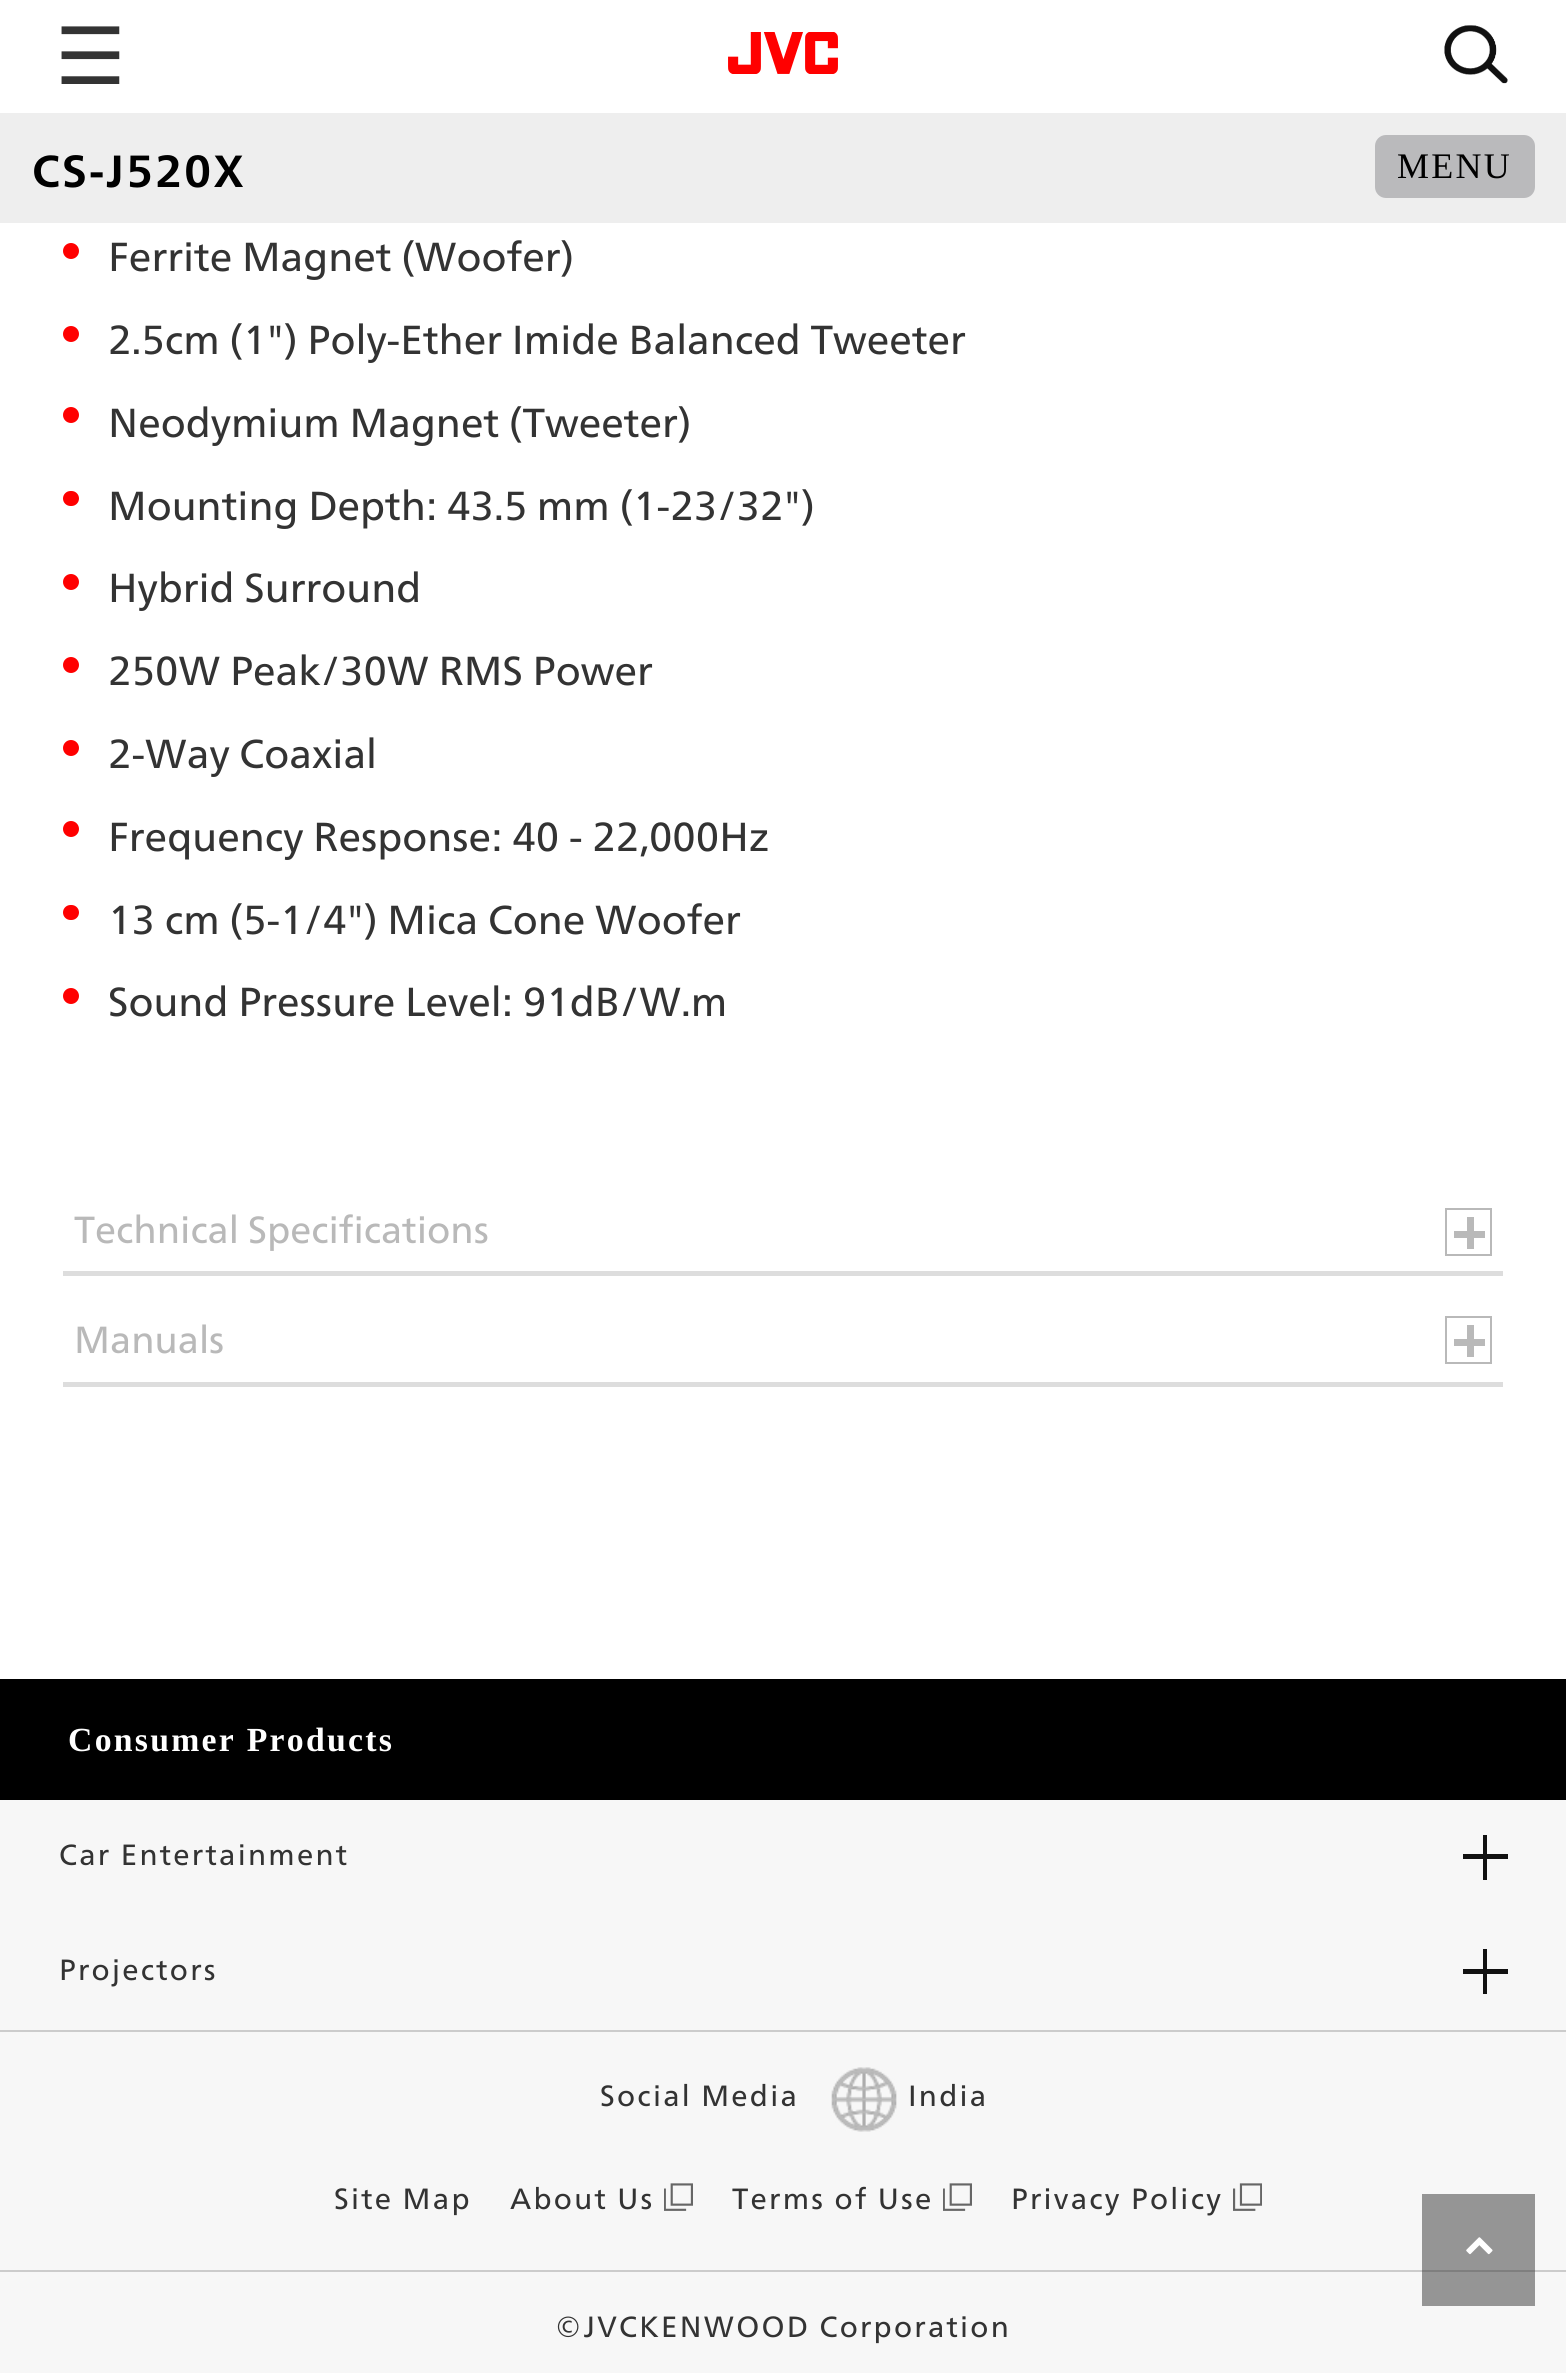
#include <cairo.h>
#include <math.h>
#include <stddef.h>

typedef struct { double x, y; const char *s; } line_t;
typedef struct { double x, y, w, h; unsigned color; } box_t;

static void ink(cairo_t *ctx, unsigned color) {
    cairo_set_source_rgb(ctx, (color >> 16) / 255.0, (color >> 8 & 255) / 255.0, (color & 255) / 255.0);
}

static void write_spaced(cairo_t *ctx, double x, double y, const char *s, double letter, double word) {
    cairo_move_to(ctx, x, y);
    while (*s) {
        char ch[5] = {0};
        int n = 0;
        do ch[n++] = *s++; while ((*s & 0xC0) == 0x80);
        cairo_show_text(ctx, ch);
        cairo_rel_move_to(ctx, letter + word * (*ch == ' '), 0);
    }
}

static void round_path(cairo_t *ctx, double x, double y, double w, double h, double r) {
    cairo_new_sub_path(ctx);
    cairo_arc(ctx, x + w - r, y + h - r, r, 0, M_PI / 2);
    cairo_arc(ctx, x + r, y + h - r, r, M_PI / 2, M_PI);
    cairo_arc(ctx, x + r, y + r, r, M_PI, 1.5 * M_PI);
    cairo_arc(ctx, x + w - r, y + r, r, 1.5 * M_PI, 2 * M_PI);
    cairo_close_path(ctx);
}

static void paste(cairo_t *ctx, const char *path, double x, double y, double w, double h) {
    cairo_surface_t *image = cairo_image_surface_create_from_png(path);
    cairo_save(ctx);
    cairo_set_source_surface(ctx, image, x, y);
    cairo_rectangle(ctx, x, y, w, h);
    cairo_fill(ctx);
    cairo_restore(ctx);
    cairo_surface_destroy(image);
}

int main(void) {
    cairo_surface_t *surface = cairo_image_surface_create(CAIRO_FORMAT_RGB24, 1566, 2373);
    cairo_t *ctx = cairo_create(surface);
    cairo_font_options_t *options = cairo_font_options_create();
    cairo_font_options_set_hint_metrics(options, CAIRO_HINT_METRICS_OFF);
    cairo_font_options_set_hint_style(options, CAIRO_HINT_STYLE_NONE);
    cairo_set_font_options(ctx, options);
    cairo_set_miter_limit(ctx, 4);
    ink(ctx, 0xFFFFFF);
    cairo_paint(ctx);
    cairo_select_font_face(ctx, "DejaVu Sans", CAIRO_FONT_SLANT_NORMAL, CAIRO_FONT_WEIGHT_NORMAL);
    cairo_set_font_size(ctx, 79);
    ink(ctx, 0x333333);
    cairo_move_to(ctx, 55, 84);
    cairo_show_text(ctx, "☰");
    paste(ctx, "media/1.png", 728, 32, 110, 42);
    paste(ctx, "media/2.png", 1444, 25, 64, 59);
    ink(ctx, 0xEEEEEE);
    cairo_rectangle(ctx, 0, 113, 1566, 110);
    cairo_fill(ctx);
    cairo_select_font_face(ctx, "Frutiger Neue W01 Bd", CAIRO_FONT_SLANT_NORMAL, CAIRO_FONT_WEIGHT_BOLD);
    cairo_set_font_size(ctx, 45);
    ink(ctx, 0x000000);
    write_spaced(ctx, 32, 187, "CS-J520X", 2.25, 0);
    ink(ctx, 0xBABABC);
    round_path(ctx, 1375, 135, 160, 63, 11);
    cairo_fill(ctx);
    cairo_select_font_face(ctx, "Liberation Serif", CAIRO_FONT_SLANT_NORMAL, CAIRO_FONT_WEIGHT_NORMAL);
    cairo_set_font_size(ctx, 36);
    ink(ctx, 0x000000);
    write_spaced(ctx, 1397, 178, "MENU", 2.25, 0);
    ink(ctx, 0xFF0000);
    cairo_new_path(ctx);
    cairo_arc(ctx, 71, 251, 8, 0, 2 * M_PI);
    cairo_fill(ctx);
    cairo_select_font_face(ctx, "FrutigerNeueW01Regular", CAIRO_FONT_SLANT_NORMAL, CAIRO_FONT_WEIGHT_NORMAL);
    cairo_set_font_size(ctx, 40.5);
    ink(ctx, 0x333333);
    cairo_move_to(ctx, 108, 271);
    cairo_show_text(ctx, "Ferrite Magnet (Woofer)");
    ink(ctx, 0xFF0000);
    cairo_new_path(ctx);
    cairo_arc(ctx, 71, 334, 8, 0, 2 * M_PI);
    cairo_fill(ctx);
    ink(ctx, 0x333333);
    cairo_move_to(ctx, 108, 354);
    cairo_show_text(ctx, "2.5cm (1\") Poly-Ether Imide Balanced Tweeter");
    ink(ctx, 0xFF0000);
    cairo_new_path(ctx);
    cairo_arc(ctx, 71, 415, 8, 0, 2 * M_PI);
    cairo_fill(ctx);
    ink(ctx, 0x333333);
    cairo_move_to(ctx, 108, 437);
    cairo_show_text(ctx, "Neodymium Magnet (Tweeter)");
    ink(ctx, 0xFF0000);
    round_path(ctx, 63, 491, 16, 15, 7.5);
    cairo_fill(ctx);
    ink(ctx, 0x333333);
    cairo_move_to(ctx, 108, 520);
    cairo_show_text(ctx, "Mounting Depth: 43.5 mm (1-23/32\")");
    ink(ctx, 0xFF0000);
    cairo_new_path(ctx);
    cairo_arc(ctx, 71, 582, 8, 0, 2 * M_PI);
    cairo_fill(ctx);
    ink(ctx, 0x333333);
    cairo_move_to(ctx, 108, 602);
    cairo_show_text(ctx, "Hybrid Surround");
    ink(ctx, 0xFF0000);
    cairo_new_path(ctx);
    cairo_arc(ctx, 71, 665, 8, 0, 2 * M_PI);
    cairo_fill(ctx);
    ink(ctx, 0x333333);
    cairo_move_to(ctx, 108, 685);
    cairo_show_text(ctx, "250W Peak/30W RMS Power");
    ink(ctx, 0xFF0000);
    cairo_new_path(ctx);
    cairo_arc(ctx, 71, 748, 8, 0, 2 * M_PI);
    cairo_fill(ctx);
    ink(ctx, 0x333333);
    cairo_move_to(ctx, 108, 768);
    cairo_show_text(ctx, "2-Way Coaxial");
    ink(ctx, 0xFF0000);
    cairo_new_path(ctx);
    cairo_arc(ctx, 71, 829, 8, 0, 2 * M_PI);
    cairo_fill(ctx);
    ink(ctx, 0x333333);
    cairo_move_to(ctx, 108, 851);
    cairo_show_text(ctx, "Frequency Response: 40 - 22,000Hz");
    ink(ctx, 0xFF0000);
    round_path(ctx, 63, 905, 16, 15, 7.5);
    cairo_fill(ctx);
    ink(ctx, 0x333333);
    cairo_move_to(ctx, 108, 934);
    cairo_show_text(ctx, "13 cm (5-1/4\") Mica Cone Woofer");
    ink(ctx, 0xFF0000);
    cairo_new_path(ctx);
    cairo_arc(ctx, 71, 996, 8, 0, 2 * M_PI);
    cairo_fill(ctx);
    ink(ctx, 0x333333);
    cairo_move_to(ctx, 108, 1016);
    cairo_show_text(ctx, "Sound Pressure Level: 91dB/W.m");
    ink(ctx, 0xDDDDDD);
    cairo_rectangle(ctx, 63, 1271, 1440, 5);
    cairo_fill(ctx);
    cairo_set_font_size(ctx, 37.75);
    ink(ctx, 0xB9B9B9);
    cairo_move_to(ctx, 74, 1243);
    cairo_show_text(ctx, "Technical Specifications");
    cairo_rectangle(ctx, 1446, 1209, 45, 46);
    cairo_stroke(ctx);
    {
        static const box_t items[] = {
            {1454, 1231, 31, 7, 0xB9B9B9},
            {1467, 1217, 7, 32, 0xB9B9B9},
            {63, 1382, 1440, 5, 0xDDDDDD},
        };
        for (size_t i = 0; i < sizeof items / sizeof *items; i++) {
            ink(ctx, items[i].color);
            cairo_rectangle(ctx, items[i].x, items[i].y, items[i].w, items[i].h);
            cairo_fill(ctx);
        }
    }
    ink(ctx, 0xB9B9B9);
    cairo_move_to(ctx, 74, 1353);
    cairo_show_text(ctx, "Manuals");
    cairo_rectangle(ctx, 1446, 1317, 45, 46);
    cairo_stroke(ctx);
    {
        static const box_t items[] = {
            {1454, 1339, 31, 7, 0xB9B9B9},
            {1467, 1325, 7, 32, 0xB9B9B9},
            {0, 1800, 1566, 573, 0xF7F7F7},
            {1422, 2194, 113, 112, 0x959595},
            {0, 1679, 1566, 121, 0x000000},
        };
        for (size_t i = 0; i < sizeof items / sizeof *items; i++) {
            ink(ctx, items[i].color);
            cairo_rectangle(ctx, items[i].x, items[i].y, items[i].w, items[i].h);
            cairo_fill(ctx);
        }
    }
    cairo_select_font_face(ctx, "Liberation Serif", CAIRO_FONT_SLANT_NORMAL, CAIRO_FONT_WEIGHT_BOLD);
    cairo_set_font_size(ctx, 33.75);
    ink(ctx, 0xFFFFFF);
    write_spaced(ctx, 68, 1751, "Consumer Products", 2.25, 0);
    cairo_select_font_face(ctx, "FrutigerNeueW01Regular", CAIRO_FONT_SLANT_NORMAL, CAIRO_FONT_WEIGHT_NORMAL);
    cairo_set_font_size(ctx, 29.25);
    ink(ctx, 0x333333);
    write_spaced(ctx, 59, 1865, "Car Entertainment", 2.25, 0);
    {
        static const box_t items[] = {
            {1463, 1854, 45, 5, 0x111111},
            {1483, 1835, 4, 45, 0x111111},
            {0, 2030, 1566, 2, 0xCCCCCC},
        };
        for (size_t i = 0; i < sizeof items / sizeof *items; i++) {
            ink(ctx, items[i].color);
            cairo_rectangle(ctx, items[i].x, items[i].y, items[i].w, items[i].h);
            cairo_fill(ctx);
        }
    }
    ink(ctx, 0x333333);
    write_spaced(ctx, 59, 1980, "Projectors", 2.25, 0);
    ink(ctx, 0x111111);
    cairo_rectangle(ctx, 1463, 1969, 45, 5);
    cairo_fill(ctx);
    cairo_rectangle(ctx, 1483, 1949, 4, 45);
    cairo_fill(ctx);
    ink(ctx, 0x333333);
    write_spaced(ctx, 600, 2106, "Social Media", 2.25, 0);
    paste(ctx, "media/3.png", 831, 2067, 66, 65);
    {
        static const line_t items[] = {
            {908, 2106, "India"},
            {334, 2209, "Site Map"},
            {510, 2209, "About Us"},
        };
        for (size_t i = 0; i < sizeof items / sizeof *items; i++) {
            write_spaced(ctx, items[i].x, items[i].y, items[i].s, 2.25, 0);
        }
    }
    paste(ctx, "media/4.png", 664, 2183, 29, 28);
    write_spaced(ctx, 732, 2209, "Terms of Use", 2.25, 0);
    paste(ctx, "media/4.png", 943, 2183, 29, 28);
    write_spaced(ctx, 1011, 2209, "Privacy Policy", 2.25, 0);
    paste(ctx, "media/5.png", 1233, 2183, 29, 28);
    ink(ctx, 0xCCCCCC);
    cairo_rectangle(ctx, 0, 2270, 1566, 2);
    cairo_fill(ctx);
    ink(ctx, 0x7F7F7F);
    cairo_rectangle(ctx, 1422, 2270, 113, 2);
    cairo_fill(ctx);
    ink(ctx, 0x333333);
    write_spaced(ctx, 555, 2337, "©JVCKENWOOD Corporation", 2.25, 0);
    paste(ctx, "media/6.png", 1466, 2237, 27, 18);
    cairo_surface_write_to_png(surface, "image.png");
    cairo_font_options_destroy(options);
    cairo_destroy(ctx);
    cairo_surface_destroy(surface);
    return 0;
}
